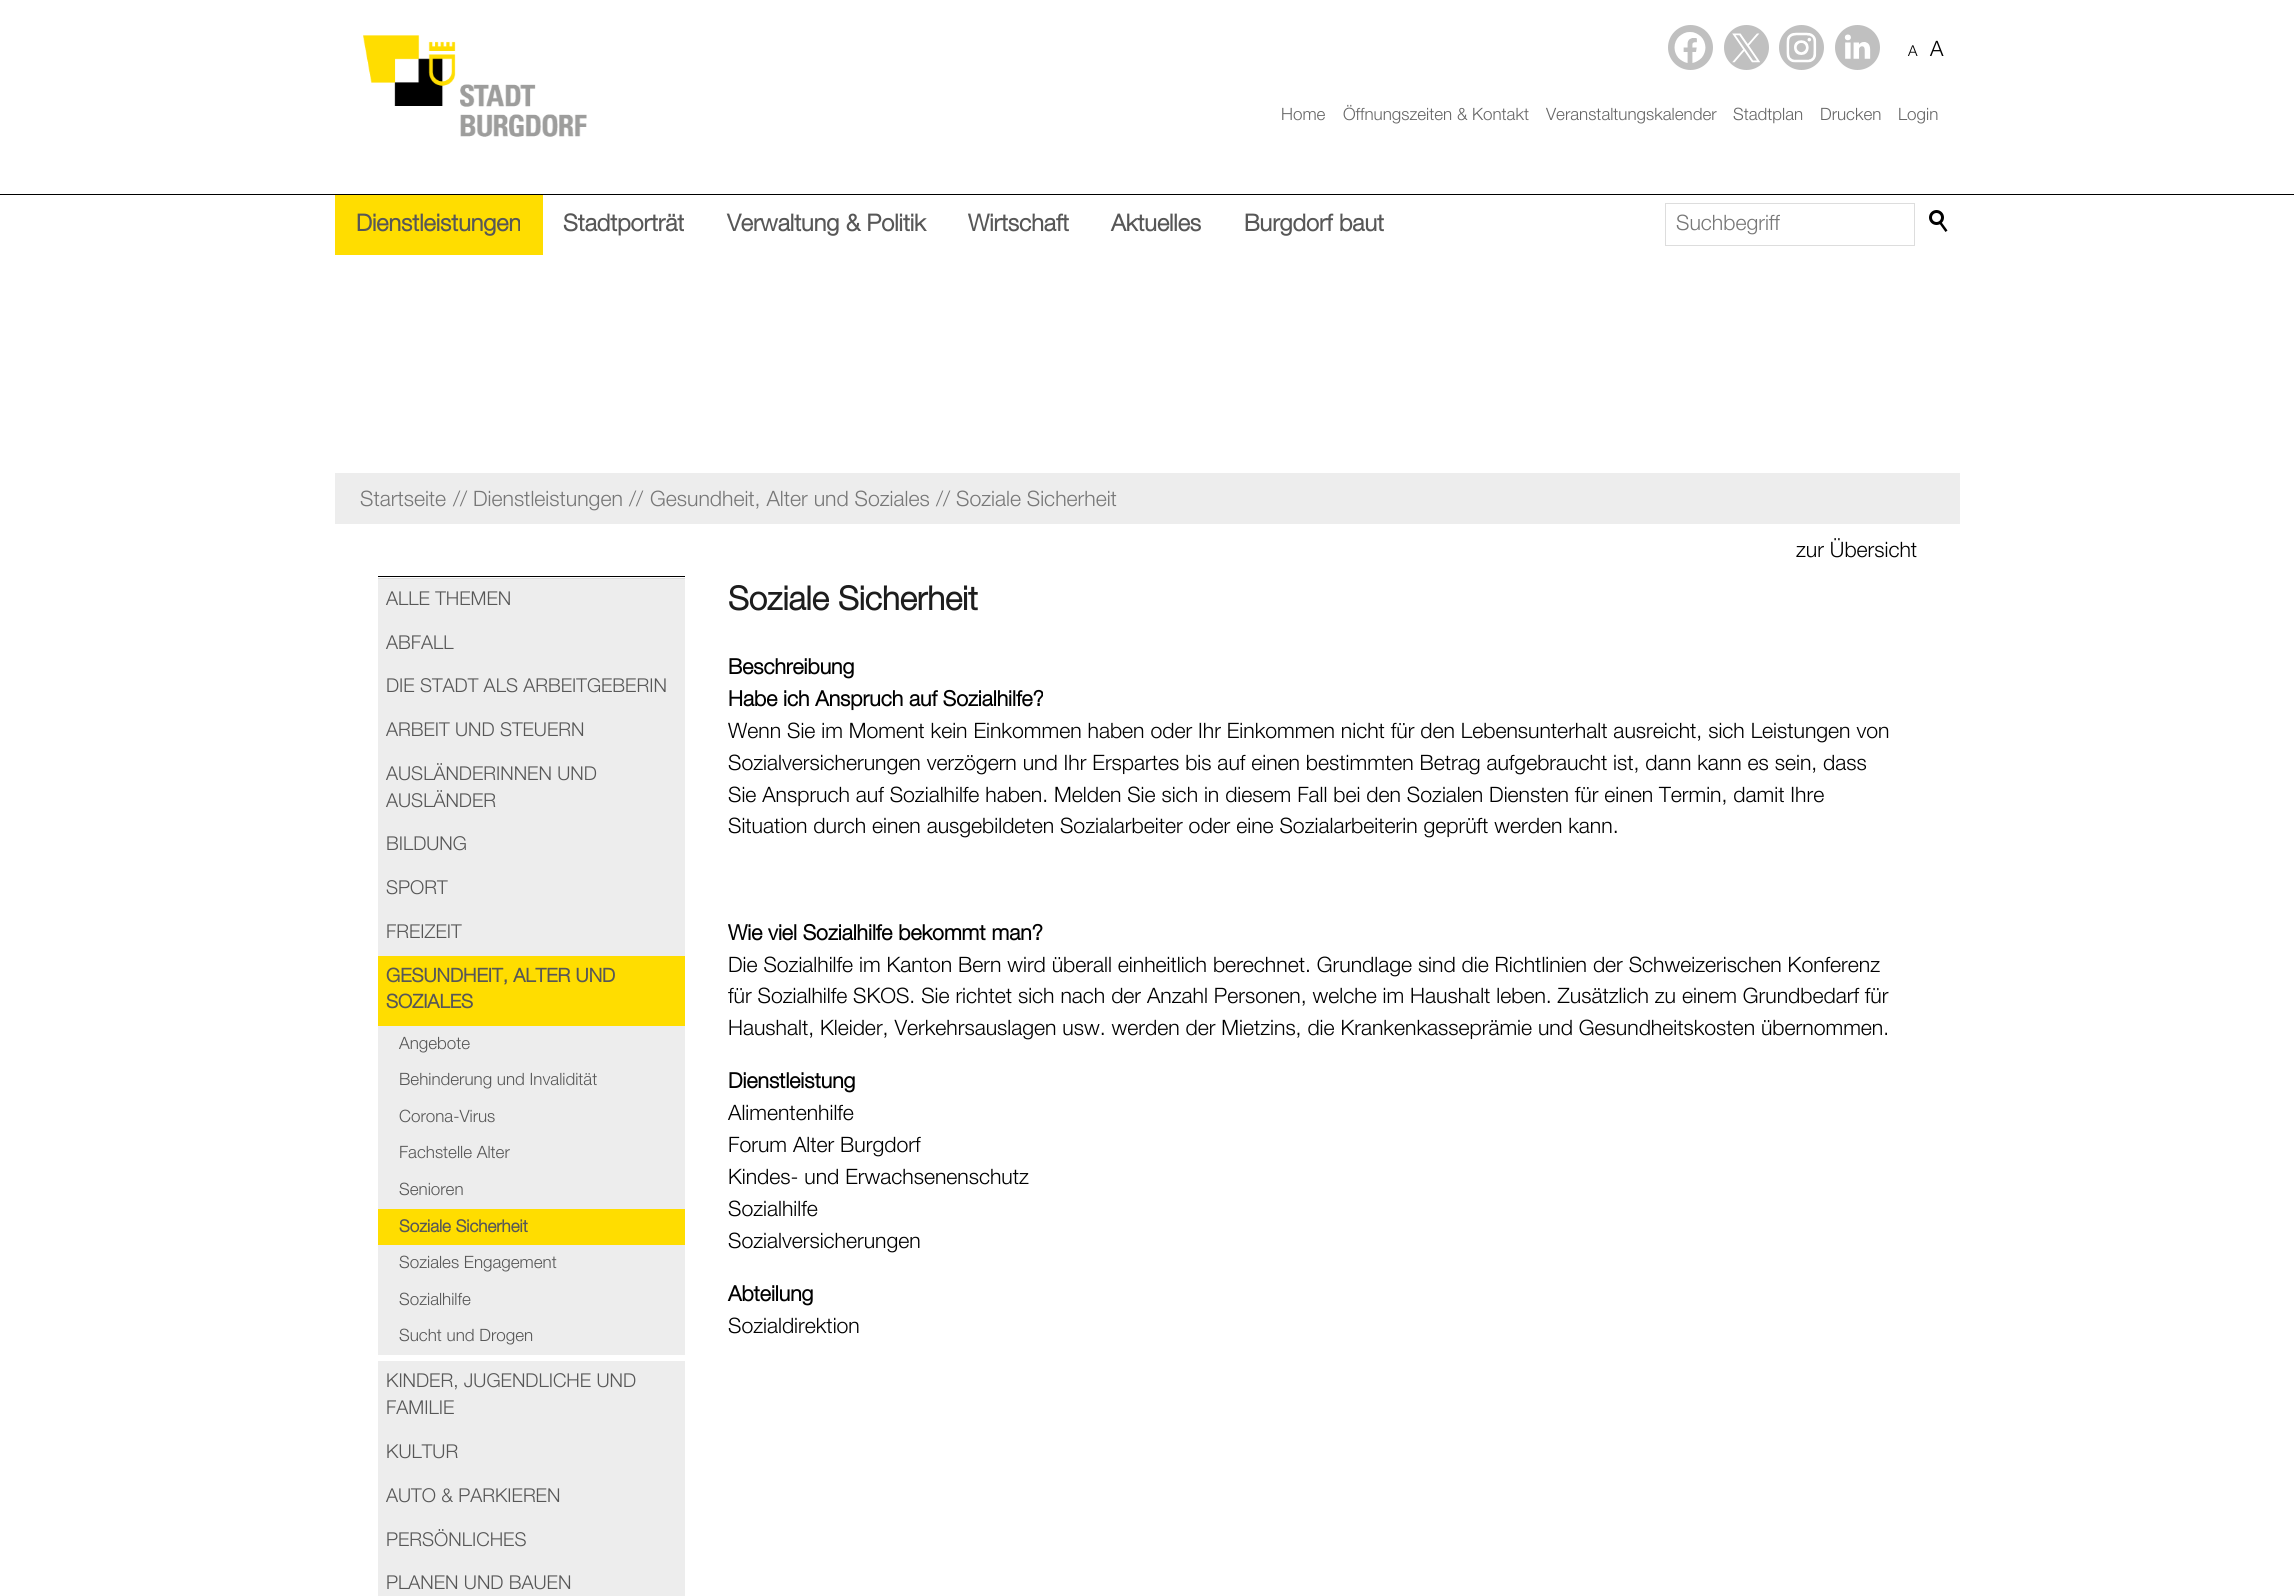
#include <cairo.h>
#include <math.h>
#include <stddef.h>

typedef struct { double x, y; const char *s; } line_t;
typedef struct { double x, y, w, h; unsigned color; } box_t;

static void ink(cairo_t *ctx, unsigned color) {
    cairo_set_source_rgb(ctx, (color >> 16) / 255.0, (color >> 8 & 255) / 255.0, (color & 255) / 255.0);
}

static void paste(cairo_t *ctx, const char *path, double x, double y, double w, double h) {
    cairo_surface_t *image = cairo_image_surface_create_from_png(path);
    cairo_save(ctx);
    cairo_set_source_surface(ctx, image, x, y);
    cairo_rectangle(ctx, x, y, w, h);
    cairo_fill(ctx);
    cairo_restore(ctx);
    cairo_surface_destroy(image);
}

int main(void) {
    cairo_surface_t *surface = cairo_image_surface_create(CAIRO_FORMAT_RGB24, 2294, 1596);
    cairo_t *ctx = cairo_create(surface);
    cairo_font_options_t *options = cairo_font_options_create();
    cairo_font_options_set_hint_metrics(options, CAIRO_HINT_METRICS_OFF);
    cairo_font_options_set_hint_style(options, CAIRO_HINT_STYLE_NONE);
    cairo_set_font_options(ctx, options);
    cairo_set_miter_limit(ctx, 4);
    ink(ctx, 0xFFFFFF);
    cairo_paint(ctx);
    ink(ctx, 0xC0C0C0);
    cairo_arc(ctx, 1690.5, 47.5, 22.5, 0, 2 * M_PI);
    cairo_fill(ctx);
    paste(ctx, "media/1.png", 1674, 32, 32, 31);
    cairo_arc(ctx, 1746.5, 47.5, 22.5, 0, 2 * M_PI);
    cairo_fill(ctx);
    paste(ctx, "media/2.png", 1732, 33, 28, 30);
    cairo_arc(ctx, 1801.5, 47.5, 22.5, 0, 2 * M_PI);
    cairo_fill(ctx);
    paste(ctx, "media/3.png", 1786, 32, 31, 31);
    cairo_arc(ctx, 1857.5, 47.5, 22.5, 0, 2 * M_PI);
    cairo_fill(ctx);
    paste(ctx, "media/4.png", 1844, 34, 27, 25);
    cairo_select_font_face(ctx, "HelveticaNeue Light", CAIRO_FONT_SLANT_NORMAL, CAIRO_FONT_WEIGHT_NORMAL);
    cairo_set_font_size(ctx, 15);
    ink(ctx, 0x000000);
    cairo_move_to(ctx, 1908, 56);
    cairo_show_text(ctx, "A");
    cairo_set_font_size(ctx, 21.25);
    cairo_move_to(ctx, 1930, 56);
    cairo_show_text(ctx, "A");
    paste(ctx, "media/5.png", 363, 35, 224, 102);
    cairo_set_font_size(ctx, 17);
    ink(ctx, 0x666666);
    {
        static const line_t items[] = {
            {1281, 120, "Home"},
            {1343, 120, "Öffnungszeiten & Kontakt"},
            {1546, 120, "Veranstaltungskalender"},
            {1733, 120, "Stadtplan"},
            {1820, 120, "Drucken"},
            {1898, 120, "Login"},
        };
        for (size_t i = 0; i < sizeof items / sizeof *items; i++) {
            cairo_move_to(ctx, items[i].x, items[i].y);
            cairo_show_text(ctx, items[i].s);
        }
    }
    ink(ctx, 0x000000);
    cairo_rectangle(ctx, 0, 194, 2294, 1);
    cairo_fill(ctx);
    ink(ctx, 0xFFDD00);
    cairo_rectangle(ctx, 335, 195, 208, 60);
    cairo_fill(ctx);
    cairo_select_font_face(ctx, "HelveticaNeue", CAIRO_FONT_SLANT_NORMAL, CAIRO_FONT_WEIGHT_BOLD);
    cairo_set_font_size(ctx, 23.4);
    ink(ctx, 0x575757);
    {
        static const line_t items[] = {
            {356, 231, "Dienstleistungen"},
            {563, 231, "Stadtporträt"},
            {727, 231, "Verwaltung & Politik"},
            {968, 231, "Wirtschaft"},
            {1111, 231, "Aktuelles"},
            {1244, 231, "Burgdorf baut"},
        };
        for (size_t i = 0; i < sizeof items / sizeof *items; i++) {
            cairo_move_to(ctx, items[i].x, items[i].y);
            cairo_show_text(ctx, items[i].s);
        }
    }
    cairo_rectangle(ctx, 1665.5, 203.5, 249, 42);
    ink(ctx, 0xDDDDDD);
    cairo_set_line_width(ctx, 1);
    cairo_stroke(ctx);
    cairo_select_font_face(ctx, "HelveticaNeue Light", CAIRO_FONT_SLANT_NORMAL, CAIRO_FONT_WEIGHT_NORMAL);
    cairo_set_font_size(ctx, 21.25);
    ink(ctx, 0x777777);
    cairo_move_to(ctx, 1676, 230);
    cairo_show_text(ctx, "Suchbegriff");
    cairo_new_path(ctx);
    cairo_arc(ctx, 1936.5, 217.5, 6, 0, 2 * M_PI);
    ink(ctx, 0x000000);
    cairo_set_line_width(ctx, 3);
    cairo_stroke(ctx);
    cairo_new_path(ctx);
    cairo_move_to(ctx, 1941, 221.5);
    cairo_line_to(ctx, 1947.5, 230.5);
    cairo_line_to(ctx, 1945.5, 232);
    cairo_line_to(ctx, 1939, 223);
    cairo_close_path(ctx);
    cairo_fill(ctx);
    ink(ctx, 0xEDEDED);
    cairo_rectangle(ctx, 335, 473, 1625, 51);
    cairo_fill(ctx);
    ink(ctx, 0x777777);
    {
        static const line_t items[] = {
            {360, 506, "Startseite"},
            {453, 506, "//"},
            {473, 506, "Dienstleistungen"},
            {629, 506, "//"},
            {650, 506, "Gesundheit, Alter und Soziales"},
            {936, 506, "//"},
            {956, 506, "Soziale Sicherheit"},
        };
        for (size_t i = 0; i < sizeof items / sizeof *items; i++) {
            cairo_move_to(ctx, items[i].x, items[i].y);
            cairo_show_text(ctx, items[i].s);
        }
    }
    {
        static const box_t items[] = {
            {378, 576, 307, 1, 0x000000},
            {378, 578, 307, 1, 0xDDDDDD},
            {378, 579, 307, 377, 0xEDEDED},
        };
        for (size_t i = 0; i < sizeof items / sizeof *items; i++) {
            ink(ctx, items[i].color);
            cairo_rectangle(ctx, items[i].x, items[i].y, items[i].w, items[i].h);
            cairo_fill(ctx);
        }
    }
    cairo_set_font_size(ctx, 19.1);
    ink(ctx, 0x575757);
    {
        static const line_t items[] = {
            {386, 605, "ALLE THEMEN"},
            {386, 649, "ABFALL"},
            {386, 692, "DIE STADT ALS ARBEITGEBERIN"},
            {386, 736, "ARBEIT UND STEUERN"},
            {386, 780, "AUSLÄNDERINNEN UND"},
            {386, 807, "AUSLÄNDER"},
            {386, 850, "BILDUNG"},
            {386, 894, "SPORT"},
            {386, 938, "FREIZEIT"},
        };
        for (size_t i = 0; i < sizeof items / sizeof *items; i++) {
            cairo_move_to(ctx, items[i].x, items[i].y);
            cairo_show_text(ctx, items[i].s);
        }
    }
    ink(ctx, 0xFFDD00);
    cairo_rectangle(ctx, 378, 956, 307, 70);
    cairo_fill(ctx);
    cairo_select_font_face(ctx, "HelveticaNeue", CAIRO_FONT_SLANT_NORMAL, CAIRO_FONT_WEIGHT_BOLD);
    ink(ctx, 0x575757);
    cairo_move_to(ctx, 386, 982);
    cairo_show_text(ctx, "GESUNDHEIT, ALTER UND");
    cairo_move_to(ctx, 386, 1008);
    cairo_show_text(ctx, "SOZIALES");
    ink(ctx, 0xEDEDED);
    cairo_rectangle(ctx, 378, 1026, 307, 183);
    cairo_fill(ctx);
    cairo_select_font_face(ctx, "HelveticaNeue Light", CAIRO_FONT_SLANT_NORMAL, CAIRO_FONT_WEIGHT_NORMAL);
    cairo_set_font_size(ctx, 17);
    ink(ctx, 0x575757);
    {
        static const line_t items[] = {
            {399, 1049, "Angebote"},
            {399, 1085, "Behinderung und Invalidität"},
            {399, 1122, "Corona-Virus"},
            {399, 1158, "Fachstelle Alter"},
            {399, 1195, "Senioren"},
        };
        for (size_t i = 0; i < sizeof items / sizeof *items; i++) {
            cairo_move_to(ctx, items[i].x, items[i].y);
            cairo_show_text(ctx, items[i].s);
        }
    }
    ink(ctx, 0xFFDD00);
    cairo_rectangle(ctx, 378, 1209, 307, 36);
    cairo_fill(ctx);
    cairo_select_font_face(ctx, "HelveticaNeue", CAIRO_FONT_SLANT_NORMAL, CAIRO_FONT_WEIGHT_BOLD);
    ink(ctx, 0x575757);
    cairo_move_to(ctx, 399, 1232);
    cairo_show_text(ctx, "Soziale Sicherheit");
    ink(ctx, 0xEDEDED);
    cairo_rectangle(ctx, 378, 1245, 307, 110);
    cairo_fill(ctx);
    cairo_select_font_face(ctx, "HelveticaNeue Light", CAIRO_FONT_SLANT_NORMAL, CAIRO_FONT_WEIGHT_NORMAL);
    ink(ctx, 0x575757);
    {
        static const line_t items[] = {
            {399, 1268, "Soziales Engagement"},
            {399, 1305, "Sozialhilfe"},
            {399, 1341, "Sucht und Drogen"},
        };
        for (size_t i = 0; i < sizeof items / sizeof *items; i++) {
            cairo_move_to(ctx, items[i].x, items[i].y);
            cairo_show_text(ctx, items[i].s);
        }
    }
    ink(ctx, 0xEDEDED);
    cairo_rectangle(ctx, 378, 1361, 307, 235);
    cairo_fill(ctx);
    cairo_set_font_size(ctx, 19.1);
    ink(ctx, 0x575757);
    {
        static const line_t items[] = {
            {386, 1387, "KINDER, JUGENDLICHE UND"},
            {386, 1414, "FAMILIE"},
            {386, 1458, "KULTUR"},
            {386, 1502, "AUTO & PARKIEREN"},
            {386, 1546, "PERSÖNLICHES"},
            {386, 1589, "PLANEN UND BAUEN"},
        };
        for (size_t i = 0; i < sizeof items / sizeof *items; i++) {
            cairo_move_to(ctx, items[i].x, items[i].y);
            cairo_show_text(ctx, items[i].s);
        }
    }
    cairo_set_font_size(ctx, 21.25);
    ink(ctx, 0x000000);
    cairo_move_to(ctx, 1796, 557);
    cairo_show_text(ctx, "zur Übersicht");
    cairo_select_font_face(ctx, "HelveticaNeue", CAIRO_FONT_SLANT_NORMAL, CAIRO_FONT_WEIGHT_BOLD);
    cairo_set_font_size(ctx, 33);
    ink(ctx, 0x1D1D1D);
    cairo_move_to(ctx, 728, 610);
    cairo_show_text(ctx, "Soziale Sicherheit");
    cairo_set_font_size(ctx, 21.25);
    ink(ctx, 0x000000);
    cairo_move_to(ctx, 728, 674);
    cairo_show_text(ctx, "Beschreibung");
    cairo_move_to(ctx, 728, 706);
    cairo_show_text(ctx, "Habe ich Anspruch auf Sozialhilfe?");
    cairo_select_font_face(ctx, "HelveticaNeue Light", CAIRO_FONT_SLANT_NORMAL, CAIRO_FONT_WEIGHT_NORMAL);
    {
        static const line_t items[] = {
            {728, 738, "Wenn Sie im Moment kein Einkommen haben oder Ihr Einkommen nicht für den Lebensunterhalt ausreicht, sich Leistungen von"},
            {728, 770, "Sozialversicherungen verzögern und Ihr Erspartes bis auf einen bestimmten Betrag aufgebraucht ist, dann kann es sein, dass"},
            {728, 802, "Sie Anspruch auf Sozialhilfe haben. Melden Sie sich in diesem Fall bei den Sozialen Diensten für einen Termin, damit Ihre"},
            {728, 833, "Situation durch einen ausgebildeten Sozialarbeiter oder eine Sozialarbeiterin geprüft werden kann."},
        };
        for (size_t i = 0; i < sizeof items / sizeof *items; i++) {
            cairo_move_to(ctx, items[i].x, items[i].y);
            cairo_show_text(ctx, items[i].s);
        }
    }
    cairo_select_font_face(ctx, "HelveticaNeue", CAIRO_FONT_SLANT_NORMAL, CAIRO_FONT_WEIGHT_BOLD);
    cairo_move_to(ctx, 728, 940);
    cairo_show_text(ctx, "Wie viel Sozialhilfe bekommt man?");
    cairo_select_font_face(ctx, "HelveticaNeue Light", CAIRO_FONT_SLANT_NORMAL, CAIRO_FONT_WEIGHT_NORMAL);
    {
        static const line_t items[] = {
            {728, 972, "Die Sozialhilfe im Kanton Bern wird überall einheitlich berechnet. Grundlage sind die Richtlinien der Schweizerischen Konferenz"},
            {728, 1003, "für Sozialhilfe SKOS. Sie richtet sich nach der Anzahl Personen, welche im Haushalt leben. Zusätzlich zu einem Grundbedarf für"},
            {728, 1035, "Haushalt, Kleider, Verkehrsauslagen usw. werden der Mietzins, die Krankenkasseprämie und Gesundheitskosten übernommen."},
        };
        for (size_t i = 0; i < sizeof items / sizeof *items; i++) {
            cairo_move_to(ctx, items[i].x, items[i].y);
            cairo_show_text(ctx, items[i].s);
        }
    }
    cairo_select_font_face(ctx, "HelveticaNeue", CAIRO_FONT_SLANT_NORMAL, CAIRO_FONT_WEIGHT_BOLD);
    cairo_move_to(ctx, 728, 1088);
    cairo_show_text(ctx, "Dienstleistung");
    cairo_select_font_face(ctx, "HelveticaNeue Light", CAIRO_FONT_SLANT_NORMAL, CAIRO_FONT_WEIGHT_NORMAL);
    {
        static const line_t items[] = {
            {728, 1120, "Alimentenhilfe"},
            {728, 1152, "Forum Alter Burgdorf"},
            {728, 1184, "Kindes- und Erwachsenenschutz"},
            {728, 1216, "Sozialhilfe"},
            {728, 1248, "Sozialversicherungen"},
        };
        for (size_t i = 0; i < sizeof items / sizeof *items; i++) {
            cairo_move_to(ctx, items[i].x, items[i].y);
            cairo_show_text(ctx, items[i].s);
        }
    }
    cairo_select_font_face(ctx, "HelveticaNeue", CAIRO_FONT_SLANT_NORMAL, CAIRO_FONT_WEIGHT_BOLD);
    cairo_move_to(ctx, 728, 1301);
    cairo_show_text(ctx, "Abteilung");
    cairo_select_font_face(ctx, "HelveticaNeue Light", CAIRO_FONT_SLANT_NORMAL, CAIRO_FONT_WEIGHT_NORMAL);
    cairo_move_to(ctx, 728, 1333);
    cairo_show_text(ctx, "Sozialdirektion");
    cairo_surface_write_to_png(surface, "image.png");
    cairo_font_options_destroy(options);
    cairo_destroy(ctx);
    cairo_surface_destroy(surface);
    return 0;
}
